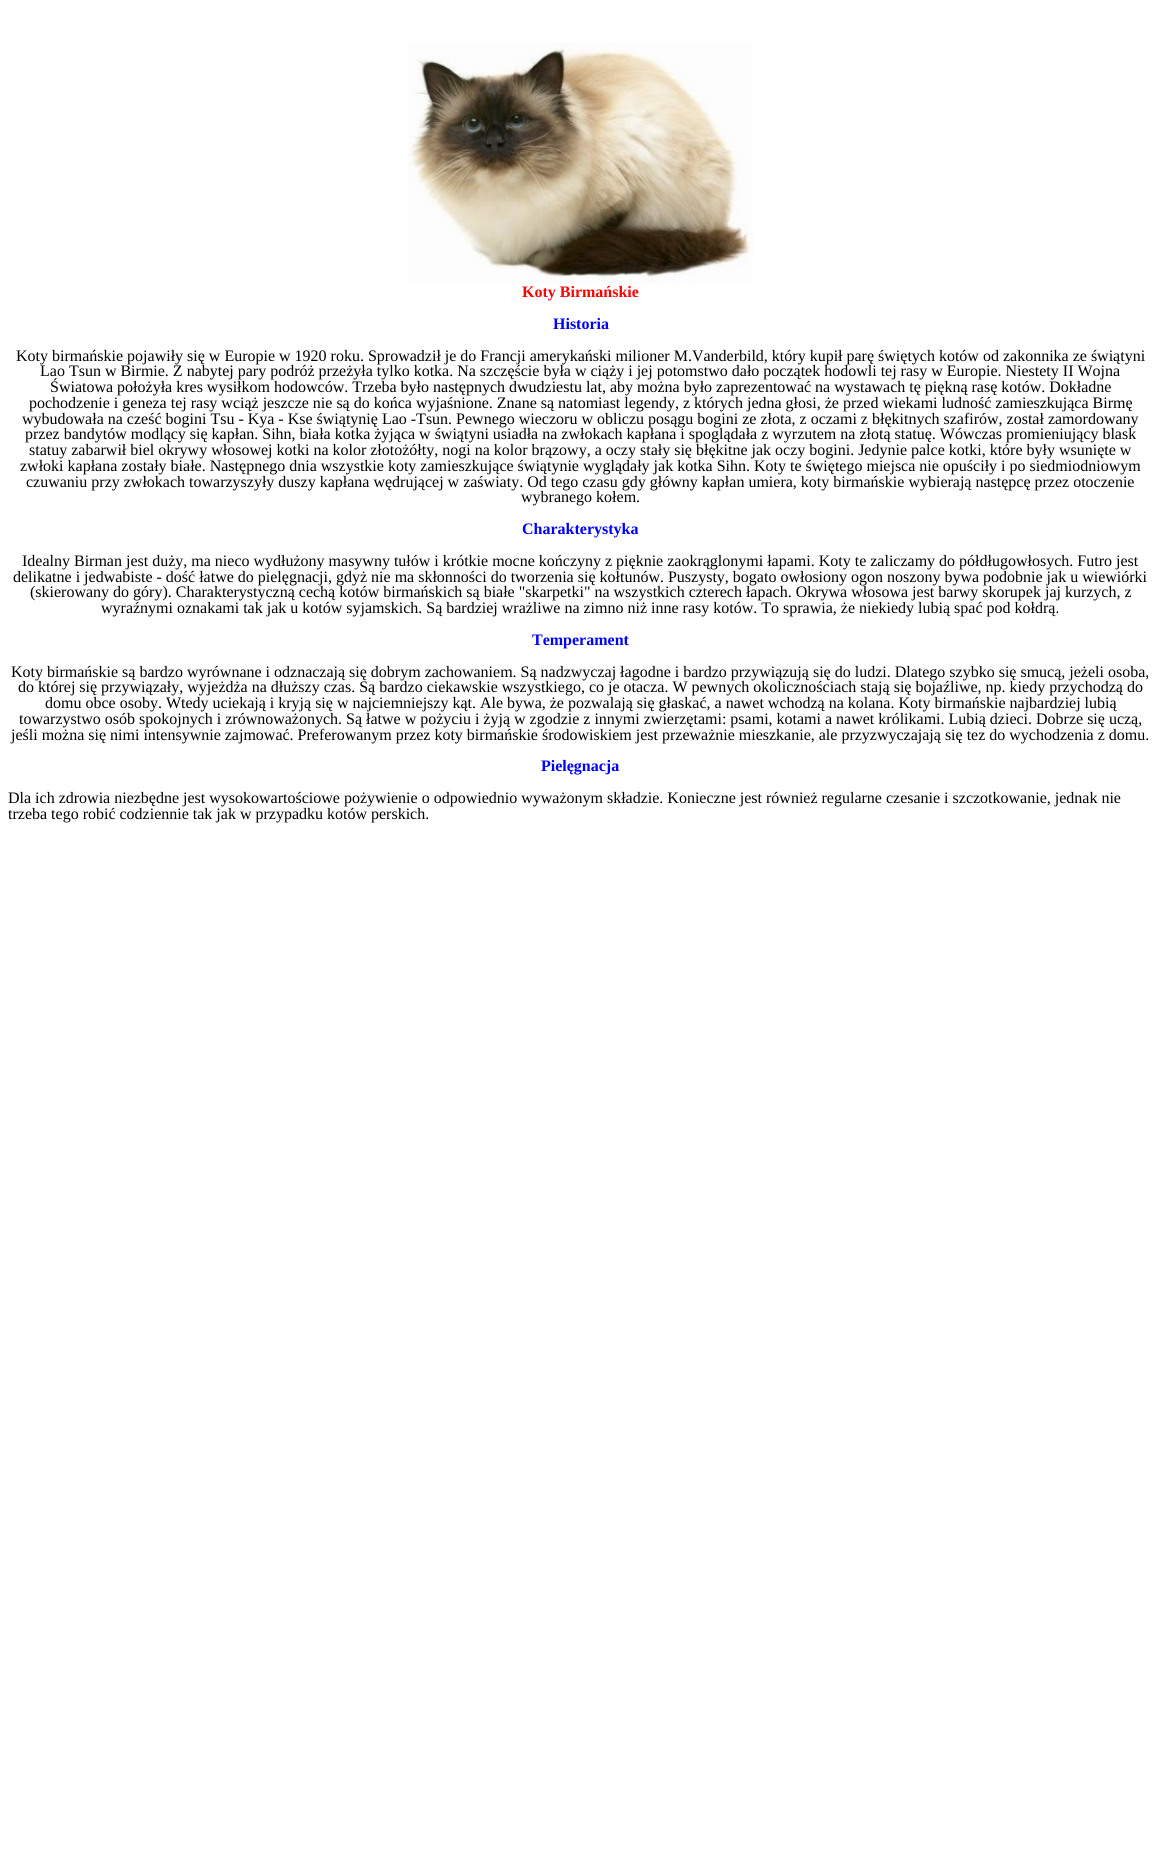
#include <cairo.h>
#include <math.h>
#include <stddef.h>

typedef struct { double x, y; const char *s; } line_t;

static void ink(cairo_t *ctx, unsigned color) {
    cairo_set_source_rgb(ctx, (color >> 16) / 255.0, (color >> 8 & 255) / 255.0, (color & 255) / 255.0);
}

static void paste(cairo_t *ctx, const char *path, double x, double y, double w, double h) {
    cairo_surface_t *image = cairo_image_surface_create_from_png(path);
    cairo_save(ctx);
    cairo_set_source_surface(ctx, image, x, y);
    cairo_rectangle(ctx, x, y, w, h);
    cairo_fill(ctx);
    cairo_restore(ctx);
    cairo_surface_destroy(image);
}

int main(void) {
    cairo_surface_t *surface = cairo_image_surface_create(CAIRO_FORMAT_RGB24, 1161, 1859);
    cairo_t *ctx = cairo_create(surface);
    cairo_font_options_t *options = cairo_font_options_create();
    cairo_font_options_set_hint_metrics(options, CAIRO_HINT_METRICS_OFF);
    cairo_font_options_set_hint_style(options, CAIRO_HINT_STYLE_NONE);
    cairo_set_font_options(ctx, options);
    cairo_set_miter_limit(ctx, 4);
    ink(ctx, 0xFFFFFF);
    cairo_paint(ctx);
    paste(ctx, "media/1.png", 408, 42, 345, 242);
    cairo_select_font_face(ctx, "Liberation Serif", CAIRO_FONT_SLANT_NORMAL, CAIRO_FONT_WEIGHT_BOLD);
    cairo_set_font_size(ctx, 16);
    ink(ctx, 0xFF0000);
    cairo_move_to(ctx, 522, 297);
    cairo_show_text(ctx, "Koty Birmańskie");
    ink(ctx, 0x0000FF);
    cairo_move_to(ctx, 553, 329);
    cairo_show_text(ctx, "Historia");
    cairo_select_font_face(ctx, "Liberation Serif", CAIRO_FONT_SLANT_NORMAL, CAIRO_FONT_WEIGHT_NORMAL);
    ink(ctx, 0x000000);
    {
        static const line_t items[] = {
            {16, 361, "Koty birmańskie pojawiły się w Europie w 1920 roku. Sprowadził je do Francji amerykański milioner M.Vanderbild, który kupił parę świętych kotów od zakonnika ze świątyni"},
            {40, 376, "Lao Tsun w Birmie. Z nabytej pary podróż przeżyła tylko kotka. Na szczęście była w ciąży i jej potomstwo dało początek hodowli tej rasy w Europie. Niestety II Wojna"},
            {50, 392, "Światowa położyła kres wysiłkom hodowców. Trzeba było następnych dwudziestu lat, aby można było zaprezentować na wystawach tę piękną rasę kotów. Dokładne"},
            {29, 408, "pochodzenie i geneza tej rasy wciąż jeszcze nie są do końca wyjaśnione. Znane są natomiast legendy, z których jedna głosi, że przed wiekami ludność zamieszkująca Birmę"},
            {22, 424, "wybudowała na cześć bogini Tsu - Kya - Kse świątynię Lao -Tsun. Pewnego wieczoru w obliczu posągu bogini ze złota, z oczami z błękitnych szafirów, został zamordowany"},
            {25, 439, "przez bandytów modlący się kapłan. Sihn, biała kotka żyjąca w świątyni usiadła na zwłokach kapłana i spoglądała z wyrzutem na złotą statuę. Wówczas promieniujący blask"},
            {29, 455, "statuy zabarwił biel okrywy włosowej kotki na kolor złotożółty, nogi na kolor brązowy, a oczy stały się błękitne jak oczy bogini. Jedynie palce kotki, które były wsunięte w"},
            {20, 471, "zwłoki kapłana zostały białe. Następnego dnia wszystkie koty zamieszkujące świątynie wyglądały jak kotka Sihn. Koty te świętego miejsca nie opuściły i po siedmiodniowym"},
            {26, 487, "czuwaniu przy zwłokach towarzyszyły duszy kapłana wędrującej w zaświaty. Od tego czasu gdy główny kapłan umiera, koty birmańskie wybierają następcę przez otoczenie"},
            {521, 502, "wybranego kołem."},
        };
        for (size_t i = 0; i < sizeof items / sizeof *items; i++) {
            cairo_move_to(ctx, items[i].x, items[i].y);
            cairo_show_text(ctx, items[i].s);
        }
    }
    cairo_select_font_face(ctx, "Liberation Serif", CAIRO_FONT_SLANT_NORMAL, CAIRO_FONT_WEIGHT_BOLD);
    ink(ctx, 0x0000FF);
    cairo_move_to(ctx, 522, 534);
    cairo_show_text(ctx, "Charakterystyka");
    cairo_select_font_face(ctx, "Liberation Serif", CAIRO_FONT_SLANT_NORMAL, CAIRO_FONT_WEIGHT_NORMAL);
    ink(ctx, 0x000000);
    {
        static const line_t items[] = {
            {22, 566, "Idealny Birman jest duży, ma nieco wydłużony masywny tułów i krótkie mocne kończyny z pięknie zaokrąglonymi łapami. Koty te zaliczamy do półdługowłosych. Futro jest"},
            {13, 582, "delikatne i jedwabiste - dość łatwe do pielęgnacji, gdyż nie ma skłonności do tworzenia się kołtunów. Puszysty, bogato owłosiony ogon noszony bywa podobnie jak u wiewiórki"},
            {30, 597, "(skierowany do góry). Charakterystyczną cechą kotów birmańskich są białe \"skarpetki\" na wszystkich czterech łapach. Okrywa włosowa jest barwy skorupek jaj kurzych, z"},
            {101, 613, "wyraźnymi oznakami tak jak u kotów syjamskich. Są bardziej wrażliwe na zimno niż inne rasy kotów. To sprawia, że niekiedy lubią spać pod kołdrą."},
        };
        for (size_t i = 0; i < sizeof items / sizeof *items; i++) {
            cairo_move_to(ctx, items[i].x, items[i].y);
            cairo_show_text(ctx, items[i].s);
        }
    }
    cairo_select_font_face(ctx, "Liberation Serif", CAIRO_FONT_SLANT_NORMAL, CAIRO_FONT_WEIGHT_BOLD);
    ink(ctx, 0x0000FF);
    cairo_move_to(ctx, 532, 645);
    cairo_show_text(ctx, "Temperament");
    cairo_select_font_face(ctx, "Liberation Serif", CAIRO_FONT_SLANT_NORMAL, CAIRO_FONT_WEIGHT_NORMAL);
    ink(ctx, 0x000000);
    {
        static const line_t items[] = {
            {11, 677, "Koty birmańskie są bardzo wyrównane i odznaczają się dobrym zachowaniem. Są nadzwyczaj łagodne i bardzo przywiązują się do ludzi. Dlatego szybko się smucą, jeżeli osoba,"},
            {18, 692, "do której się przywiązały, wyjeżdża na dłuższy czas. Są bardzo ciekawskie wszystkiego, co je otacza. W pewnych okolicznościach stają się bojaźliwe, np. kiedy przychodzą do"},
            {45, 708, "domu obce osoby. Wtedy uciekają i kryją się w najciemniejszy kąt. Ale bywa, że pozwalają się głaskać, a nawet wchodzą na kolana. Koty birmańskie najbardziej lubią"},
            {19, 724, "towarzystwo osób spokojnych i zrównoważonych. Są łatwe w pożyciu i żyją w zgodzie z innymi zwierzętami: psami, kotami a nawet królikami. Lubią dzieci. Dobrze się uczą,"},
            {11, 740, "jeśli można się nimi intensywnie zajmować. Preferowanym przez koty birmańskie środowiskiem jest przeważnie mieszkanie, ale przyzwyczajają się tez do wychodzenia z domu."},
        };
        for (size_t i = 0; i < sizeof items / sizeof *items; i++) {
            cairo_move_to(ctx, items[i].x, items[i].y);
            cairo_show_text(ctx, items[i].s);
        }
    }
    cairo_select_font_face(ctx, "Liberation Serif", CAIRO_FONT_SLANT_NORMAL, CAIRO_FONT_WEIGHT_BOLD);
    ink(ctx, 0x0000FF);
    cairo_move_to(ctx, 541, 771);
    cairo_show_text(ctx, "Pielęgnacja");
    cairo_select_font_face(ctx, "Liberation Serif", CAIRO_FONT_SLANT_NORMAL, CAIRO_FONT_WEIGHT_NORMAL);
    ink(ctx, 0x000000);
    cairo_move_to(ctx, 8, 803);
    cairo_show_text(ctx, "Dla ich zdrowia niezbędne jest wysokowartościowe pożywienie o odpowiednio wyważonym składzie. Konieczne jest również regularne czesanie i szczotkowanie, jednak nie");
    cairo_move_to(ctx, 8, 819);
    cairo_show_text(ctx, "trzeba tego robić codziennie tak jak w przypadku kotów perskich.");
    cairo_surface_write_to_png(surface, "image.png");
    cairo_font_options_destroy(options);
    cairo_destroy(ctx);
    cairo_surface_destroy(surface);
    return 0;
}
